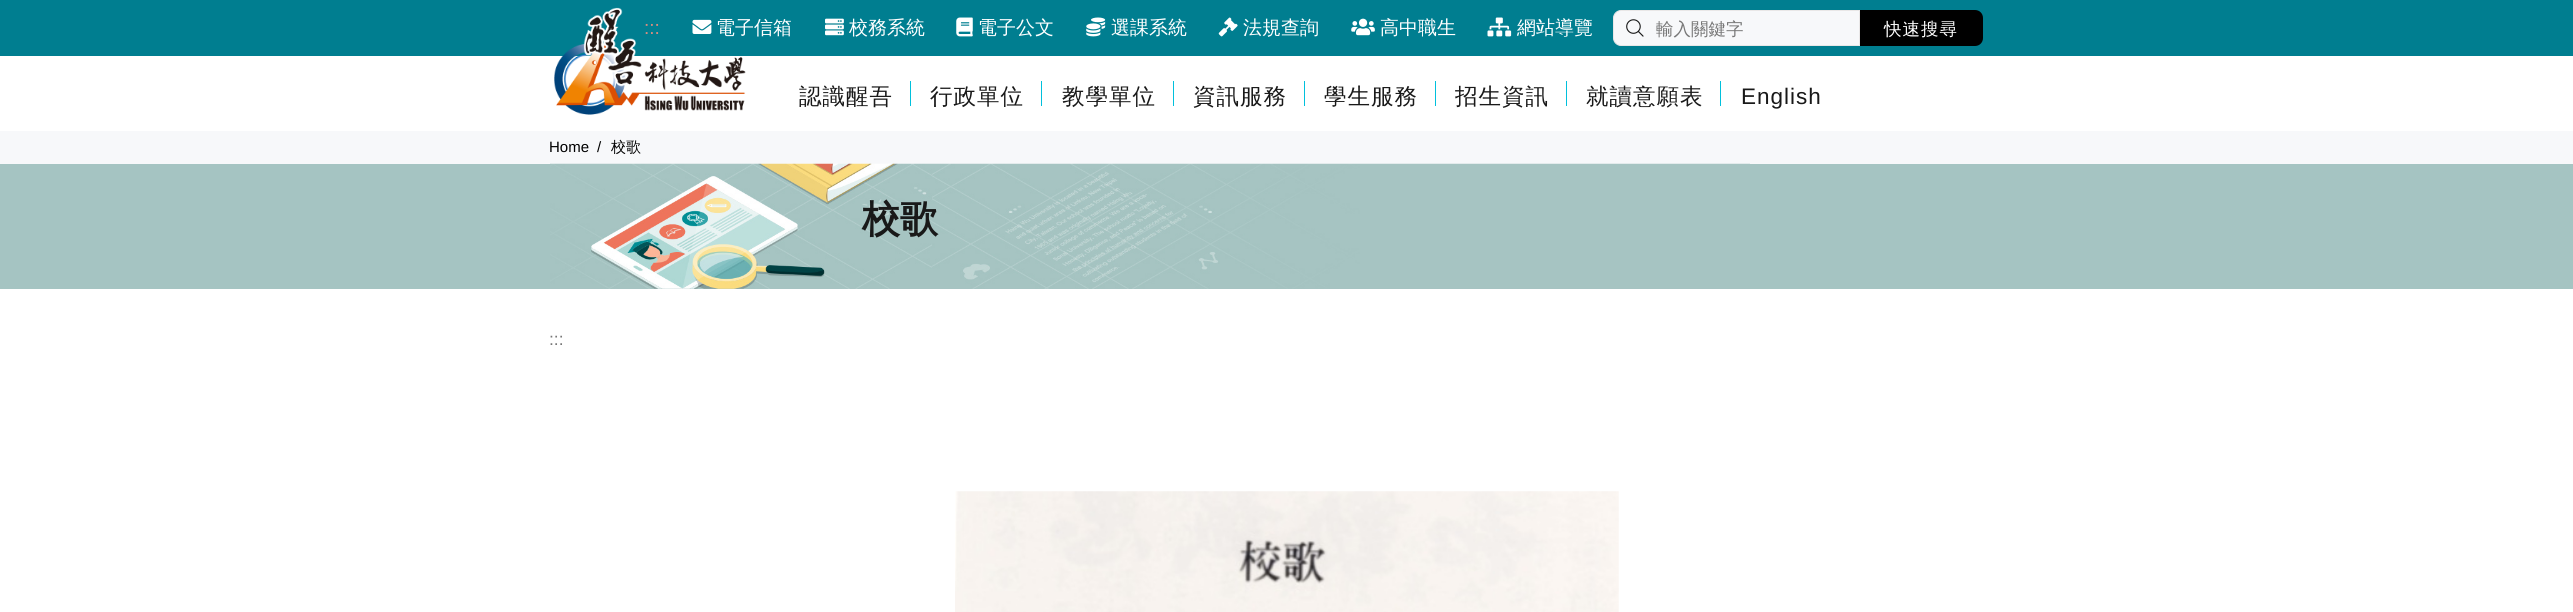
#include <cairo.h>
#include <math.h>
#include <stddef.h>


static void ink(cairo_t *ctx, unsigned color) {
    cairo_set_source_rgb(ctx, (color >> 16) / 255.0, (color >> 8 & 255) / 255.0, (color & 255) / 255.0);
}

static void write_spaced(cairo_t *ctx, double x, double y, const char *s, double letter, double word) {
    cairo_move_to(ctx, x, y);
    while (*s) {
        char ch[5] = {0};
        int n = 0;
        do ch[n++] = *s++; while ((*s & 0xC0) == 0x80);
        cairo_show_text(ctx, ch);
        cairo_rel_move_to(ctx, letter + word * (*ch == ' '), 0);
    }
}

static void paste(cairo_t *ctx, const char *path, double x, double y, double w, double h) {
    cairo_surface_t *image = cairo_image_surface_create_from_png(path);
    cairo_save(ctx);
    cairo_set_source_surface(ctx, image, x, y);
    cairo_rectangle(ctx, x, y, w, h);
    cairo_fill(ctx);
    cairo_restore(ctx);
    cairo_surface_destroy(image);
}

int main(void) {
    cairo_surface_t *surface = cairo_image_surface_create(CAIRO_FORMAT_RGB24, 2573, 612);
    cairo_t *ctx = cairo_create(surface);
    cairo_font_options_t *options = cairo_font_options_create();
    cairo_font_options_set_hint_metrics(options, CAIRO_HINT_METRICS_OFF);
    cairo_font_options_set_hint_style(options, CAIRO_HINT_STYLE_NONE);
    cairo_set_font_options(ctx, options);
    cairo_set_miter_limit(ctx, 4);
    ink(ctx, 0xFFFFFF);
    cairo_paint(ctx);
    ink(ctx, 0x007E90);
    cairo_rectangle(ctx, 0, 0, 2573, 56);
    cairo_fill(ctx);
    cairo_select_font_face(ctx, "Liberation Sans", CAIRO_FONT_SLANT_NORMAL, CAIRO_FONT_WEIGHT_NORMAL);
    cairo_set_font_size(ctx, 19);
    ink(ctx, 0xD98C7F);
    cairo_move_to(ctx, 644, 34);
    cairo_show_text(ctx, ":::");
    paste(ctx, "media/1.png", 692, 19, 20, 15);
    cairo_select_font_face(ctx, "WenQuanYi Zen Hei Medium", CAIRO_FONT_SLANT_NORMAL, CAIRO_FONT_WEIGHT_NORMAL);
    ink(ctx, 0xFFFFFF);
    cairo_move_to(ctx, 716, 34);
    cairo_show_text(ctx, "電子信箱");
    paste(ctx, "media/2.png", 825, 18, 19, 18);
    cairo_move_to(ctx, 849, 34);
    cairo_show_text(ctx, "校務系統");
    paste(ctx, "media/3.png", 956, 17, 17, 20);
    cairo_move_to(ctx, 978, 34);
    cairo_show_text(ctx, "電子公文");
    paste(ctx, "media/4.png", 1086, 17, 20, 20);
    cairo_move_to(ctx, 1111, 34);
    cairo_show_text(ctx, "選課系統");
    paste(ctx, "media/5.png", 1218, 17, 20, 20);
    cairo_move_to(ctx, 1243, 34);
    cairo_show_text(ctx, "法規查詢");
    paste(ctx, "media/6.png", 1351, 18, 24, 18);
    cairo_move_to(ctx, 1380, 34);
    cairo_show_text(ctx, "高中職生");
    paste(ctx, "media/7.png", 1487, 17, 25, 20);
    cairo_move_to(ctx, 1517, 34);
    cairo_show_text(ctx, "網站導覽");
    ink(ctx, 0xF7F8FA);
    cairo_new_path(ctx);
    cairo_move_to(ctx, 1621, 10.5);
    cairo_line_to(ctx, 1859.5, 10.5);
    cairo_line_to(ctx, 1859.5, 45.5);
    cairo_line_to(ctx, 1621, 45.5);
    cairo_curve_to(ctx, 1617, 45.5, 1613.5, 42, 1613.5, 38);
    cairo_line_to(ctx, 1613.5, 18);
    cairo_curve_to(ctx, 1613.5, 14, 1617, 10.5, 1621, 10.5);
    cairo_close_path(ctx);
    cairo_fill_preserve(ctx);
    ink(ctx, 0xE9E7E7);
    cairo_set_line_width(ctx, 1);
    cairo_stroke(ctx);
    paste(ctx, "media/8.png", 1626, 19, 18, 18);
    cairo_set_font_size(ctx, 17.5);
    ink(ctx, 0x777777);
    cairo_move_to(ctx, 1656, 35);
    cairo_show_text(ctx, "輸入關鍵字");
    ink(ctx, 0x000000);
    cairo_new_path(ctx);
    cairo_move_to(ctx, 1860, 10);
    cairo_line_to(ctx, 1975, 10);
    cairo_curve_to(ctx, 1979.5, 10, 1983, 13.5, 1983, 18);
    cairo_line_to(ctx, 1983, 38);
    cairo_curve_to(ctx, 1983, 42.5, 1979.5, 46, 1975, 46);
    cairo_line_to(ctx, 1860, 46);
    cairo_close_path(ctx);
    cairo_fill(ctx);
    ink(ctx, 0xFFFFFF);
    write_spaced(ctx, 1884, 35, "快速搜尋", 1, 0);
    paste(ctx, "media/9.png", 554, 7, 192, 108);
    cairo_set_font_size(ctx, 22.5);
    ink(ctx, 0x191919);
    write_spaced(ctx, 799, 104, "認識醒吾", 1, 0);
    ink(ctx, 0x01C0DC);
    cairo_rectangle(ctx, 910, 81, 1, 25);
    cairo_fill(ctx);
    ink(ctx, 0x191919);
    write_spaced(ctx, 930, 104, "行政單位", 1, 0);
    ink(ctx, 0x01C0DC);
    cairo_rectangle(ctx, 1041, 81, 1, 25);
    cairo_fill(ctx);
    ink(ctx, 0x191919);
    write_spaced(ctx, 1062, 104, "教學單位", 1, 0);
    ink(ctx, 0x01C0DC);
    cairo_rectangle(ctx, 1173, 81, 1, 25);
    cairo_fill(ctx);
    ink(ctx, 0x191919);
    write_spaced(ctx, 1193, 104, "資訊服務", 1, 0);
    ink(ctx, 0x01C0DC);
    cairo_rectangle(ctx, 1304, 81, 1, 25);
    cairo_fill(ctx);
    ink(ctx, 0x191919);
    write_spaced(ctx, 1324, 104, "學生服務", 1, 0);
    ink(ctx, 0x01C0DC);
    cairo_rectangle(ctx, 1435, 81, 1, 25);
    cairo_fill(ctx);
    ink(ctx, 0x191919);
    write_spaced(ctx, 1455, 104, "招生資訊", 1, 0);
    ink(ctx, 0x01C0DC);
    cairo_rectangle(ctx, 1566, 81, 1, 25);
    cairo_fill(ctx);
    ink(ctx, 0x191919);
    write_spaced(ctx, 1586, 104, "就讀意願表", 1, 0);
    ink(ctx, 0x01C0DC);
    cairo_rectangle(ctx, 1720, 81, 1, 25);
    cairo_fill(ctx);
    cairo_select_font_face(ctx, "Liberation Sans", CAIRO_FONT_SLANT_NORMAL, CAIRO_FONT_WEIGHT_NORMAL);
    ink(ctx, 0x191919);
    write_spaced(ctx, 1741, 104, "English", 1, 0);
    ink(ctx, 0xF7F8FA);
    cairo_rectangle(ctx, 0, 131, 2573, 33);
    cairo_fill(ctx);
    cairo_set_font_size(ctx, 15);
    ink(ctx, 0x000000);
    cairo_move_to(ctx, 549, 152);
    cairo_show_text(ctx, "Home");
    cairo_move_to(ctx, 597, 152);
    cairo_show_text(ctx, "/");
    cairo_select_font_face(ctx, "WenQuanYi Zen Hei Medium", CAIRO_FONT_SLANT_NORMAL, CAIRO_FONT_WEIGHT_NORMAL);
    cairo_move_to(ctx, 611, 152);
    cairo_show_text(ctx, "校歌");
    ink(ctx, 0xA5C4C2);
    cairo_rectangle(ctx, 0, 164, 2573, 125);
    cairo_fill(ctx);
    paste(ctx, "media/10.png", 550, 163, 1200, 126);
    cairo_select_font_face(ctx, "WenQuanYi Zen Hei", CAIRO_FONT_SLANT_NORMAL, CAIRO_FONT_WEIGHT_BOLD);
    cairo_set_font_size(ctx, 38);
    ink(ctx, 0x191919);
    cairo_move_to(ctx, 862, 232);
    cairo_show_text(ctx, "校歌");
    cairo_select_font_face(ctx, "Liberation Sans", CAIRO_FONT_SLANT_NORMAL, CAIRO_FONT_WEIGHT_NORMAL);
    cairo_set_font_size(ctx, 17.5);
    ink(ctx, 0x777777);
    cairo_move_to(ctx, 549, 345);
    cairo_show_text(ctx, ":::");
    paste(ctx, "media/11.png", 955, 491, 664, 121);
    cairo_surface_write_to_png(surface, "image.png");
    cairo_font_options_destroy(options);
    cairo_destroy(ctx);
    cairo_surface_destroy(surface);
    return 0;
}
